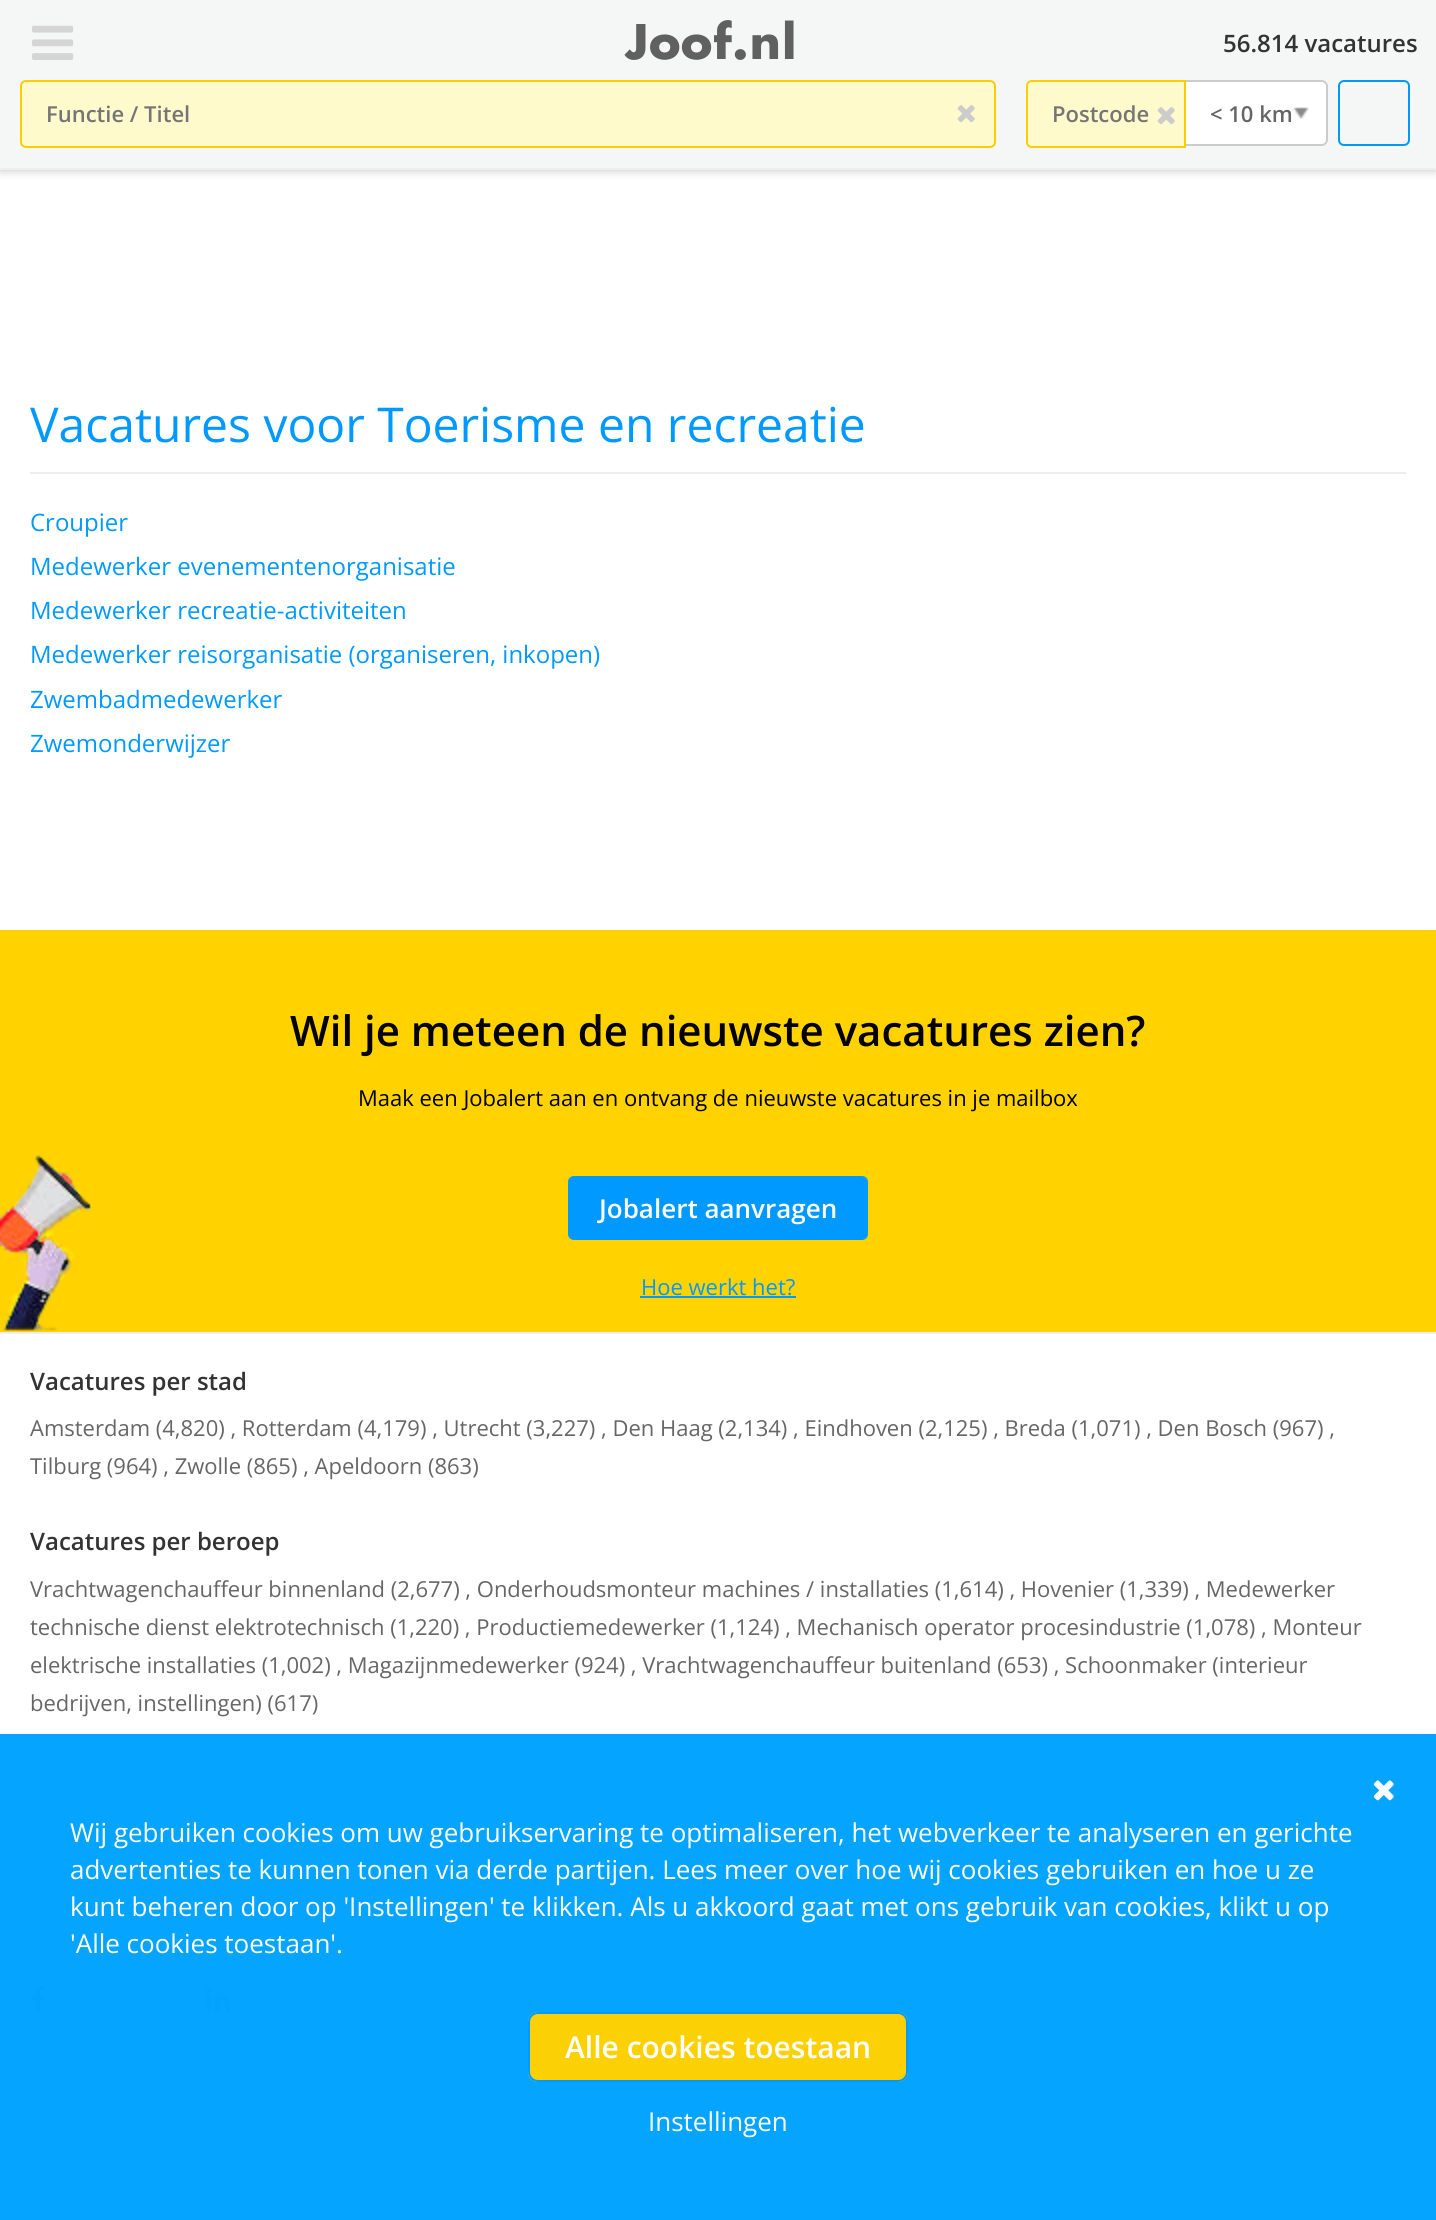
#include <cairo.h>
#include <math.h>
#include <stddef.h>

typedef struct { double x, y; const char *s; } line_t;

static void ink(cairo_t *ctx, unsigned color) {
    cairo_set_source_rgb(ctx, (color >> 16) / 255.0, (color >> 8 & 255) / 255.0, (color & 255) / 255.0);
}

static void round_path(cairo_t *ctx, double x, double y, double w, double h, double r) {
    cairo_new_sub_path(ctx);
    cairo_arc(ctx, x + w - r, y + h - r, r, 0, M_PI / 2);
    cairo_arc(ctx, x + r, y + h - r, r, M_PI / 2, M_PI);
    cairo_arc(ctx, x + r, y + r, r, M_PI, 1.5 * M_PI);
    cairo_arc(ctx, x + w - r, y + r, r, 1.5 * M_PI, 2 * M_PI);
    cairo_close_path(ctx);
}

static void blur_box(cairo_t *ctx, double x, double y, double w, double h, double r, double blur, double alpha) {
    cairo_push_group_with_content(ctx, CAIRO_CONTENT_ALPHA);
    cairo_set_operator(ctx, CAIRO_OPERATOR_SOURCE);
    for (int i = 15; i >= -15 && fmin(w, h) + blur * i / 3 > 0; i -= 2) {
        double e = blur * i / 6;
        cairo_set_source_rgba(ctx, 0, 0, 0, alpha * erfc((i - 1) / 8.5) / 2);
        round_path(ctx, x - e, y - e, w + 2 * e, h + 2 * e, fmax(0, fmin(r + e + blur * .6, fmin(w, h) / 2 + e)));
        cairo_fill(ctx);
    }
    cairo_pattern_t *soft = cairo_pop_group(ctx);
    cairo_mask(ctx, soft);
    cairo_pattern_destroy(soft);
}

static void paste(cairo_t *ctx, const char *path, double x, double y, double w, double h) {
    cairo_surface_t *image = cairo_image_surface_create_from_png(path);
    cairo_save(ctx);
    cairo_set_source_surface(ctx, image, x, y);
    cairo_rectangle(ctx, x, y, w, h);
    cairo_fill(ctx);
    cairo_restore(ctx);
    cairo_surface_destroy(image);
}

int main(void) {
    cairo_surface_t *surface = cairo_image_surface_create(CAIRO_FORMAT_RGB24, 1436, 2220);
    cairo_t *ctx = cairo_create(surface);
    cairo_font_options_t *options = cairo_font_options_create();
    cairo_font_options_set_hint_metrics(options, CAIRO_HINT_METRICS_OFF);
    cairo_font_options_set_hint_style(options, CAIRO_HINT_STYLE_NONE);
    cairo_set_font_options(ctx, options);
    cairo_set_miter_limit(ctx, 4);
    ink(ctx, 0xFFFFFF);
    cairo_paint(ctx);
    ink(ctx, 0x05A4FF);
    cairo_rectangle(ctx, 0, 1734, 1436, 486);
    cairo_fill(ctx);
    ink(ctx, 0x000000);
    blur_box(ctx, 0, 0, 1436, 170, 0, 5, 0.25);
    ink(ctx, 0xF5F6F6);
    cairo_rectangle(ctx, 0, 0, 1436, 168);
    cairo_fill(ctx);
    cairo_select_font_face(ctx, "Open Sans SemiBold", CAIRO_FONT_SLANT_NORMAL, CAIRO_FONT_WEIGHT_NORMAL);
    cairo_set_font_size(ctx, 24);
    ink(ctx, 0x333333);
    cairo_move_to(ctx, 1223, 52);
    cairo_show_text(ctx, "56.814 vacatures");
    ink(ctx, 0xEEEEEE);
    cairo_rectangle(ctx, 0, 168, 1436, 2);
    cairo_fill(ctx);
    paste(ctx, "media/1.png", 32, 25, 42, 35);
    paste(ctx, "media/2.png", 624, 20, 170, 40);
    ink(ctx, 0xFFFACC);
    round_path(ctx, 21, 81, 974, 66, 5);
    cairo_fill_preserve(ctx);
    ink(ctx, 0xFFCC00);
    cairo_stroke(ctx);
    cairo_set_font_size(ctx, 22);
    ink(ctx, 0x757575);
    cairo_move_to(ctx, 46, 122);
    cairo_show_text(ctx, "Functie / Titel");
    paste(ctx, "media/3.png", 957, 105, 18, 18);
    ink(ctx, 0xFFFACC);
    cairo_new_path(ctx);
    cairo_move_to(ctx, 1032, 81);
    cairo_line_to(ctx, 1185, 81);
    cairo_line_to(ctx, 1185, 147);
    cairo_line_to(ctx, 1032, 147);
    cairo_curve_to(ctx, 1029, 147, 1027, 145, 1027, 142);
    cairo_line_to(ctx, 1027, 86);
    cairo_curve_to(ctx, 1027, 83, 1029, 81, 1032, 81);
    cairo_close_path(ctx);
    cairo_fill_preserve(ctx);
    ink(ctx, 0xFFCC00);
    cairo_stroke(ctx);
    ink(ctx, 0x757575);
    cairo_move_to(ctx, 1052, 122);
    cairo_show_text(ctx, "Postcode");
    paste(ctx, "media/3.png", 1157, 107, 18, 18);
    ink(ctx, 0xFFFFFF);
    cairo_new_path(ctx);
    cairo_move_to(ctx, 1186, 80);
    cairo_line_to(ctx, 1322, 80);
    cairo_curve_to(ctx, 1325.5, 80, 1328, 82.5, 1328, 86);
    cairo_line_to(ctx, 1328, 140);
    cairo_curve_to(ctx, 1328, 143.5, 1325.5, 146, 1322, 146);
    cairo_line_to(ctx, 1186, 146);
    cairo_close_path(ctx);
    cairo_fill(ctx);
    ink(ctx, 0xCCCCCC);
    cairo_set_fill_rule(ctx, CAIRO_FILL_RULE_EVEN_ODD);
    cairo_new_path(ctx);
    cairo_move_to(ctx, 1186, 80);
    cairo_line_to(ctx, 1322, 80);
    cairo_curve_to(ctx, 1325, 80, 1328, 83, 1328, 86);
    cairo_line_to(ctx, 1328, 140);
    cairo_curve_to(ctx, 1328, 143, 1325, 146, 1322, 146);
    cairo_line_to(ctx, 1186, 146);
    cairo_close_path(ctx);
    cairo_move_to(ctx, 1186, 82);
    cairo_line_to(ctx, 1322, 82);
    cairo_curve_to(ctx, 1324, 82, 1326, 84, 1326, 86);
    cairo_line_to(ctx, 1326, 140);
    cairo_curve_to(ctx, 1326, 142, 1324, 144, 1322, 144);
    cairo_line_to(ctx, 1186, 144);
    cairo_close_path(ctx);
    cairo_fill(ctx);
    ink(ctx, 0x666666);
    cairo_move_to(ctx, 1210, 122);
    cairo_show_text(ctx, "< 10 km");
    paste(ctx, "media/4.png", 1293, 107, 16, 12);
    round_path(ctx, 1339, 81, 70, 64, 5);
    ink(ctx, 0x0099FF);
    cairo_stroke(ctx);
    cairo_select_font_face(ctx, "Open Sans", CAIRO_FONT_SLANT_NORMAL, CAIRO_FONT_WEIGHT_NORMAL);
    cairo_set_font_size(ctx, 48);
    cairo_move_to(ctx, 30, 442);
    cairo_show_text(ctx, "Vacatures voor Toerisme en recreatie");
    ink(ctx, 0xEEEEEE);
    cairo_rectangle(ctx, 30, 472, 1376, 2);
    cairo_fill(ctx);
    cairo_set_font_size(ctx, 24);
    ink(ctx, 0x0099FF);
    {
        static const line_t items[] = {
            {30, 531, "Croupier"},
            {30, 575, "Medewerker evenementenorganisatie"},
            {30, 619, "Medewerker recreatie-activiteiten"},
            {30, 663, "Medewerker reisorganisatie (organiseren, inkopen)"},
            {30, 708, "Zwembadmedewerker"},
            {30, 752, "Zwemonderwijzer"},
        };
        for (size_t i = 0; i < sizeof items / sizeof *items; i++) {
            cairo_move_to(ctx, items[i].x, items[i].y);
            cairo_show_text(ctx, items[i].s);
        }
    }
    ink(ctx, 0xFFD200);
    cairo_rectangle(ctx, 0, 930, 1436, 402);
    cairo_fill(ctx);
    cairo_select_font_face(ctx, "Open Sans SemiBold", CAIRO_FONT_SLANT_NORMAL, CAIRO_FONT_WEIGHT_NORMAL);
    cairo_set_font_size(ctx, 42);
    ink(ctx, 0x000000);
    cairo_move_to(ctx, 290, 1046);
    cairo_show_text(ctx, "Wil je meteen de nieuwste vacatures zien?");
    cairo_select_font_face(ctx, "Open Sans", CAIRO_FONT_SLANT_NORMAL, CAIRO_FONT_WEIGHT_NORMAL);
    cairo_set_font_size(ctx, 22);
    cairo_move_to(ctx, 358, 1106);
    cairo_show_text(ctx, "Maak een Jobalert aan en ontvang de nieuwste vacatures in je mailbox");
    ink(ctx, 0xEEEEEE);
    cairo_rectangle(ctx, 0, 1332, 1436, 2);
    cairo_fill(ctx);
    paste(ctx, "media/5.png", 0, 1155, 93, 178);
    ink(ctx, 0x0099FF);
    round_path(ctx, 569, 1177, 298, 62, 5);
    cairo_fill_preserve(ctx);
    cairo_stroke(ctx);
    cairo_select_font_face(ctx, "Open Sans SemiBold", CAIRO_FONT_SLANT_NORMAL, CAIRO_FONT_WEIGHT_NORMAL);
    cairo_set_font_size(ctx, 26);
    ink(ctx, 0xFFFFFF);
    cairo_move_to(ctx, 599, 1218);
    cairo_show_text(ctx, "Jobalert aanvragen");
    cairo_select_font_face(ctx, "Open Sans", CAIRO_FONT_SLANT_NORMAL, CAIRO_FONT_WEIGHT_NORMAL);
    cairo_set_font_size(ctx, 22);
    ink(ctx, 0x0099FF);
    cairo_move_to(ctx, 641, 1295);
    cairo_show_text(ctx, "Hoe werkt het?");
    cairo_rectangle(ctx, 640, 1296, 156, 2);
    cairo_fill(ctx);
    cairo_select_font_face(ctx, "Open Sans SemiBold", CAIRO_FONT_SLANT_NORMAL, CAIRO_FONT_WEIGHT_NORMAL);
    cairo_set_font_size(ctx, 24);
    ink(ctx, 0x333333);
    cairo_move_to(ctx, 30, 1390);
    cairo_show_text(ctx, "Vacatures per stad");
    cairo_select_font_face(ctx, "Open Sans", CAIRO_FONT_SLANT_NORMAL, CAIRO_FONT_WEIGHT_NORMAL);
    cairo_set_font_size(ctx, 22);
    ink(ctx, 0x666666);
    cairo_move_to(ctx, 30, 1436);
    cairo_show_text(ctx, "Amsterdam (4,820) , Rotterdam (4,179) , Utrecht (3,227) , Den Haag (2,134) , Eindhoven (2,125) , Breda (1,071) , Den Bosch (967) ,");
    cairo_move_to(ctx, 30, 1474);
    cairo_show_text(ctx, "Tilburg (964) , Zwolle (865) , Apeldoorn (863)");
    cairo_select_font_face(ctx, "Open Sans SemiBold", CAIRO_FONT_SLANT_NORMAL, CAIRO_FONT_WEIGHT_NORMAL);
    cairo_set_font_size(ctx, 24);
    ink(ctx, 0x333333);
    cairo_move_to(ctx, 30, 1550);
    cairo_show_text(ctx, "Vacatures per beroep");
    cairo_select_font_face(ctx, "Open Sans", CAIRO_FONT_SLANT_NORMAL, CAIRO_FONT_WEIGHT_NORMAL);
    cairo_set_font_size(ctx, 22);
    ink(ctx, 0x666666);
    {
        static const line_t items[] = {
            {30, 1597, "Vrachtwagenchauffeur binnenland (2,677) , Onderhoudsmonteur machines / installaties (1,614) , Hovenier (1,339) , Medewerker"},
            {30, 1635, "technische dienst elektrotechnisch (1,220) , Productiemedewerker (1,124) , Mechanisch operator procesindustrie (1,078) , Monteur"},
            {30, 1673, "elektrische installaties (1,002) , Magazijnmedewerker (924) , Vrachtwagenchauffeur buitenland (653) , Schoonmaker (interieur"},
            {30, 1711, "bedrijven, instellingen) (617)"},
        };
        for (size_t i = 0; i < sizeof items / sizeof *items; i++) {
            cairo_move_to(ctx, items[i].x, items[i].y);
            cairo_show_text(ctx, items[i].s);
        }
    }
    paste(ctx, "media/6.png", 31, 1986, 14, 26);
    paste(ctx, "media/7.png", 206, 1988, 24, 24);
    paste(ctx, "media/8.png", 1373, 1780, 21, 21);
    cairo_set_font_size(ctx, 26);
    ink(ctx, 0xFFFFFF);
    {
        static const line_t items[] = {
            {70, 1842, "Wij gebruiken cookies om uw gebruikservaring te optimaliseren, het webverkeer te analyseren en gerichte"},
            {70, 1879, "advertenties te kunnen tonen via derde partijen. Lees meer over hoe wij cookies gebruiken en hoe u ze"},
            {70, 1916, "kunt beheren door op 'Instellingen' te klikken. Als u akkoord gaat met ons gebruik van cookies, klikt u op"},
            {70, 1953, "'Alle cookies toestaan'."},
        };
        for (size_t i = 0; i < sizeof items / sizeof *items; i++) {
            cairo_move_to(ctx, items[i].x, items[i].y);
            cairo_show_text(ctx, items[i].s);
        }
    }
    ink(ctx, 0xFBD105);
    round_path(ctx, 528, 2012, 380, 70, 10);
    cairo_fill(ctx);
    round_path(ctx, 529, 2013, 378, 68, 9);
    cairo_set_source_rgba(ctx, 0, 0.6, 1, 0.98);
    cairo_stroke(ctx);
    cairo_select_font_face(ctx, "Open Sans SemiBold", CAIRO_FONT_SLANT_NORMAL, CAIRO_FONT_WEIGHT_NORMAL);
    cairo_set_font_size(ctx, 30);
    ink(ctx, 0xFFFFFF);
    cairo_move_to(ctx, 565, 2058);
    cairo_show_text(ctx, "Alle cookies toestaan");
    cairo_select_font_face(ctx, "Open Sans", CAIRO_FONT_SLANT_NORMAL, CAIRO_FONT_WEIGHT_NORMAL);
    cairo_set_font_size(ctx, 26);
    cairo_move_to(ctx, 648, 2131);
    cairo_show_text(ctx, "Instellingen");
    cairo_surface_write_to_png(surface, "image.png");
    cairo_font_options_destroy(options);
    cairo_destroy(ctx);
    cairo_surface_destroy(surface);
    return 0;
}
